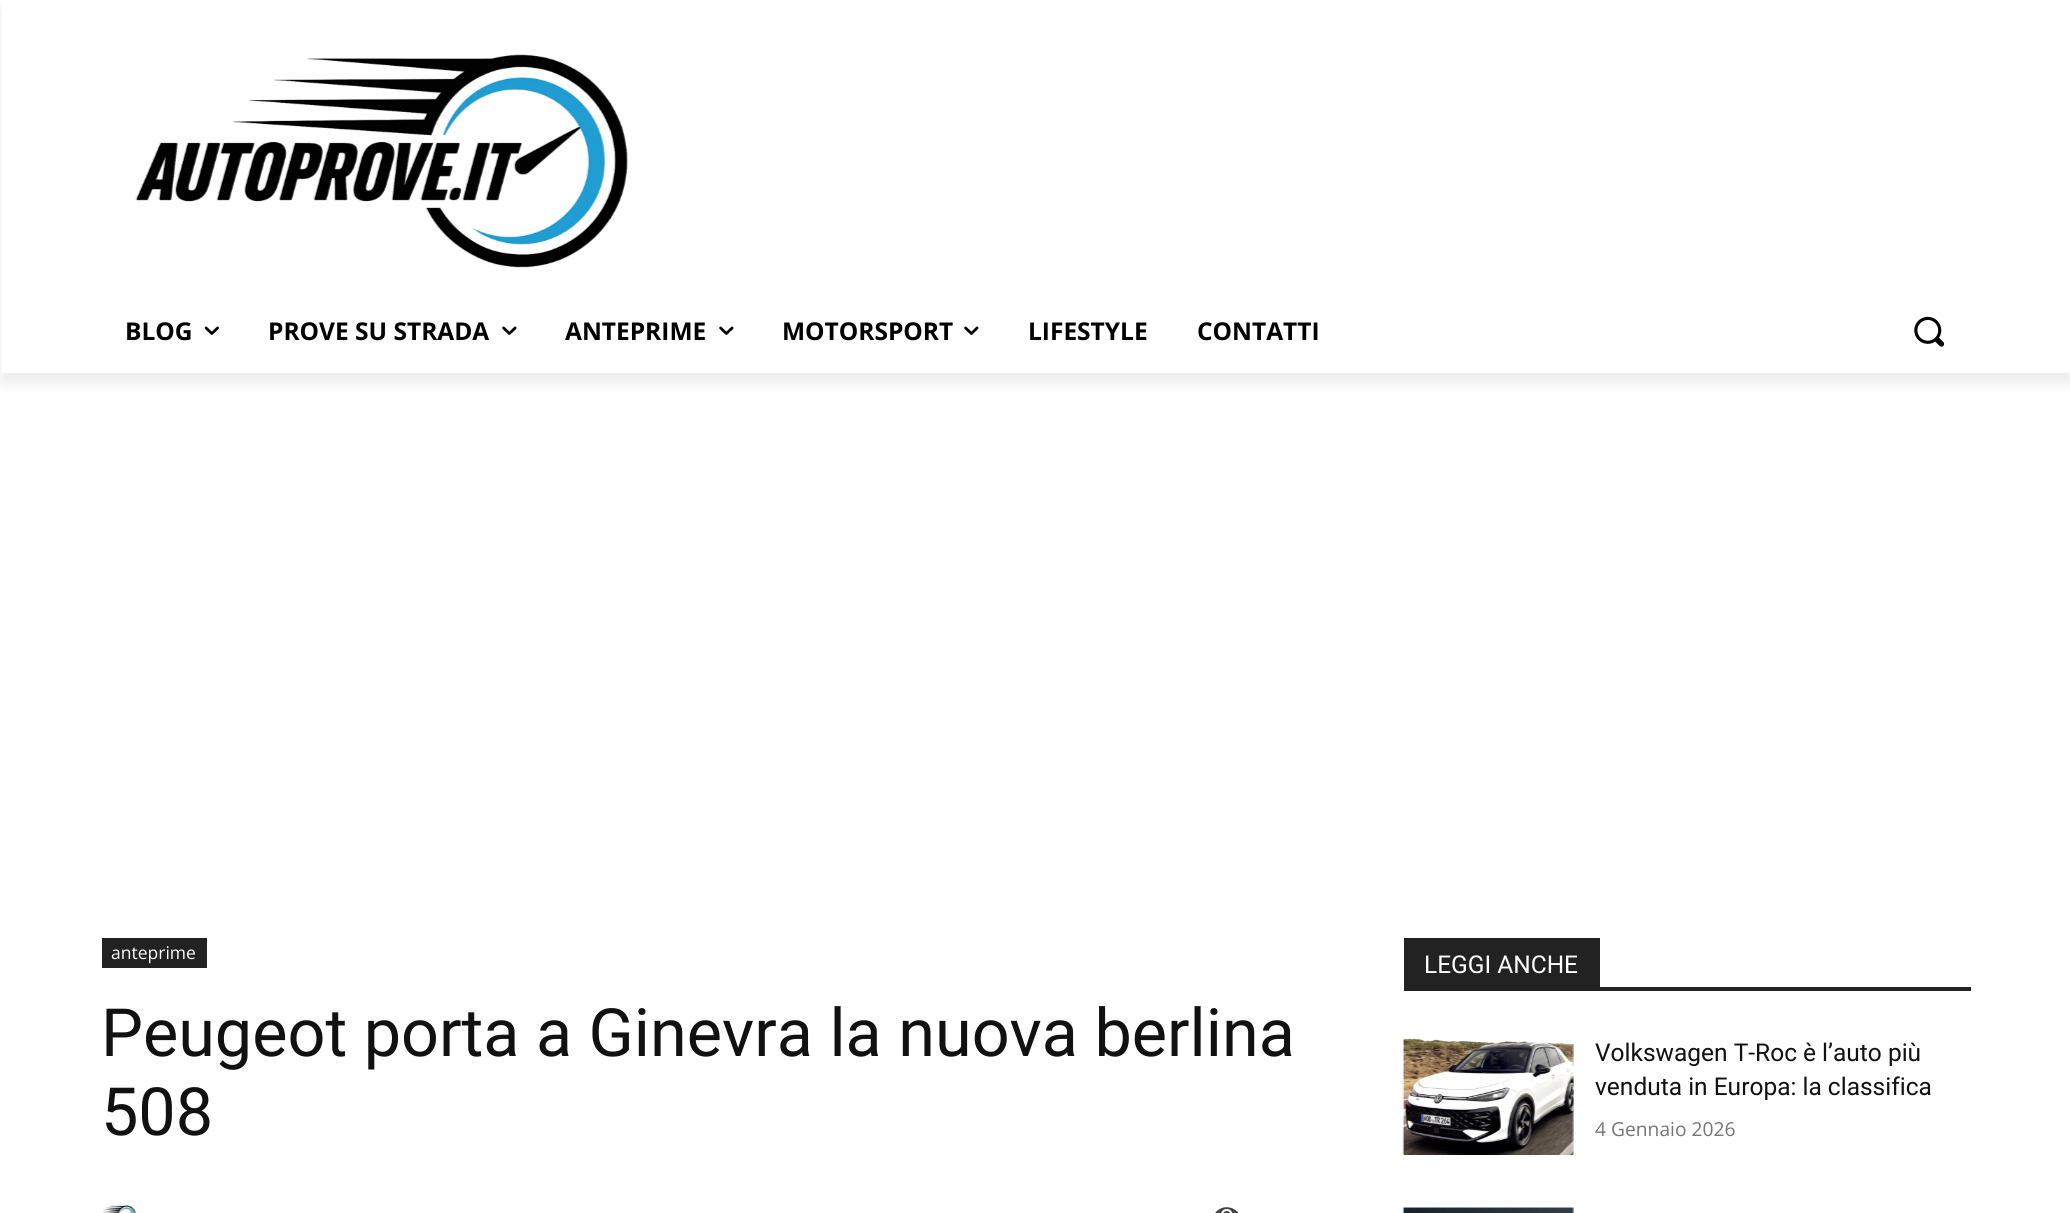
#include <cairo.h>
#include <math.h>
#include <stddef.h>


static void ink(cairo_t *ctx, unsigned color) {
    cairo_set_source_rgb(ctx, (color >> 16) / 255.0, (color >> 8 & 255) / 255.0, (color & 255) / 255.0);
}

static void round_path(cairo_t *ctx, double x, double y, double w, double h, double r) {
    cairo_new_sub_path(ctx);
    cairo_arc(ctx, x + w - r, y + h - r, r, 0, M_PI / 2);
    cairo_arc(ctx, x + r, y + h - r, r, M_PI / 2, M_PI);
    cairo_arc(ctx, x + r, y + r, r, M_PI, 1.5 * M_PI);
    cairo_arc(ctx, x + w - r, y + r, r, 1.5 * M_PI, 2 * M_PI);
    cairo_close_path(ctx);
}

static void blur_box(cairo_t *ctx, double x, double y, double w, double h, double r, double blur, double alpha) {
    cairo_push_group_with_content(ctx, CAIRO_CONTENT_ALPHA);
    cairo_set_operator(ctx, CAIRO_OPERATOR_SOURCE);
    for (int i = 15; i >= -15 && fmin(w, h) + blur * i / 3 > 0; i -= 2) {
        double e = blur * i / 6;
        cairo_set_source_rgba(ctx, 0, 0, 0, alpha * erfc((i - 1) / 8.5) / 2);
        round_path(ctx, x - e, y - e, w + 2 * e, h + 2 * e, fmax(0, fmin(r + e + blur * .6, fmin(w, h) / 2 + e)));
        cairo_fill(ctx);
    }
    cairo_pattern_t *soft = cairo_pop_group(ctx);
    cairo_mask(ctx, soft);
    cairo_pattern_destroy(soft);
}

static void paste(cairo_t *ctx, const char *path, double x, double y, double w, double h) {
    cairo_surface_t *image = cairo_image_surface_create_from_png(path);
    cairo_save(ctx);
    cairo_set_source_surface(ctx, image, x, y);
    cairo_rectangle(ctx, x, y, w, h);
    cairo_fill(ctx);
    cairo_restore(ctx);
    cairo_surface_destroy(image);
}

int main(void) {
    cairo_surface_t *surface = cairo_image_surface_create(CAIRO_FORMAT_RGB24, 2070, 1213);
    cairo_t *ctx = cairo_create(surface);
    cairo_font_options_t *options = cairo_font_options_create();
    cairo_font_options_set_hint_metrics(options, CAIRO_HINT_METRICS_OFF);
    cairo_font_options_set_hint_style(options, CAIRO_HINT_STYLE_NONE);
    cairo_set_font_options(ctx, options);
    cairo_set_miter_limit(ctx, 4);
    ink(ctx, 0xFFFFFF);
    cairo_paint(ctx);
    paste(ctx, "media/1.png", 135, 54, 493, 214);
    cairo_save(ctx);
    cairo_set_fill_rule(ctx, CAIRO_FILL_RULE_EVEN_ODD);
    cairo_new_path(ctx);
    cairo_move_to(ctx, 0, 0);
    cairo_line_to(ctx, 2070, 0);
    cairo_line_to(ctx, 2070, 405);
    cairo_line_to(ctx, 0, 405);
    cairo_close_path(ctx);
    cairo_move_to(ctx, 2, 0);
    cairo_line_to(ctx, 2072, 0);
    cairo_line_to(ctx, 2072, 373);
    cairo_line_to(ctx, 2, 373);
    cairo_close_path(ctx);
    cairo_clip(ctx);
    ink(ctx, 0x000000);
    blur_box(ctx, 2, 11, 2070, 372, 0, 7, 0.08);
    cairo_restore(ctx);
    cairo_select_font_face(ctx, "Open Sans", CAIRO_FONT_SLANT_NORMAL, CAIRO_FONT_WEIGHT_BOLD);
    cairo_set_font_size(ctx, 24.5);
    ink(ctx, 0x000000);
    cairo_move_to(ctx, 125, 340);
    cairo_show_text(ctx, "BLOG");
    paste(ctx, "media/2.png", 204, 326, 15, 9);
    cairo_move_to(ctx, 268, 340);
    cairo_show_text(ctx, "PROVE SU STRADA");
    paste(ctx, "media/3.png", 502, 326, 15, 9);
    cairo_move_to(ctx, 565, 340);
    cairo_show_text(ctx, "ANTEPRIME");
    paste(ctx, "media/3.png", 719, 326, 15, 9);
    cairo_move_to(ctx, 782, 340);
    cairo_show_text(ctx, "MOTORSPORT");
    paste(ctx, "media/3.png", 964, 326, 15, 9);
    cairo_move_to(ctx, 1028, 340);
    cairo_show_text(ctx, "LIFESTYLE");
    cairo_move_to(ctx, 1197, 340);
    cairo_show_text(ctx, "CONTATTI");
    paste(ctx, "media/4.png", 1914, 316, 31, 31);
    ink(ctx, 0x222222);
    cairo_rectangle(ctx, 102, 938, 105, 30);
    cairo_fill(ctx);
    cairo_select_font_face(ctx, "Open Sans", CAIRO_FONT_SLANT_NORMAL, CAIRO_FONT_WEIGHT_NORMAL);
    cairo_set_font_size(ctx, 17.5);
    ink(ctx, 0xFFFFFF);
    cairo_move_to(ctx, 111, 959);
    cairo_show_text(ctx, "anteprime");
    cairo_select_font_face(ctx, "Roboto", CAIRO_FONT_SLANT_NORMAL, CAIRO_FONT_WEIGHT_NORMAL);
    cairo_set_font_size(ctx, 66.5);
    ink(ctx, 0x111111);
    cairo_move_to(ctx, 101, 1056);
    cairo_show_text(ctx, "Peugeot porta a Ginevra la nuova berlina");
    cairo_move_to(ctx, 101, 1135);
    cairo_show_text(ctx, "508");
    paste(ctx, "media/5.png", 102, 1204, 35, 9);
    paste(ctx, "media/6.png", 1215, 1207, 24, 6);
    ink(ctx, 0x222222);
    cairo_rectangle(ctx, 1404, 987, 567, 4);
    cairo_fill(ctx);
    cairo_rectangle(ctx, 1404, 938, 196, 49);
    cairo_fill(ctx);
    cairo_set_font_size(ctx, 24.5);
    ink(ctx, 0xFFFFFF);
    cairo_move_to(ctx, 1424, 973);
    cairo_show_text(ctx, "LEGGI ANCHE");
    paste(ctx, "media/7.png", 1402, 1038, 172, 117);
    ink(ctx, 0x111111);
    cairo_move_to(ctx, 1595, 1061);
    cairo_show_text(ctx, "Volkswagen T-Roc è l’auto più");
    cairo_move_to(ctx, 1595, 1095);
    cairo_show_text(ctx, "venduta in Europa: la classifica");
    cairo_select_font_face(ctx, "Open Sans", CAIRO_FONT_SLANT_NORMAL, CAIRO_FONT_WEIGHT_NORMAL);
    cairo_set_font_size(ctx, 19.25);
    ink(ctx, 0x767676);
    cairo_move_to(ctx, 1595, 1136);
    cairo_show_text(ctx, "4 Gennaio 2026");
    paste(ctx, "media/8.png", 1402, 1207, 172, 6);
    cairo_surface_write_to_png(surface, "image.png");
    cairo_font_options_destroy(options);
    cairo_destroy(ctx);
    cairo_surface_destroy(surface);
    return 0;
}
